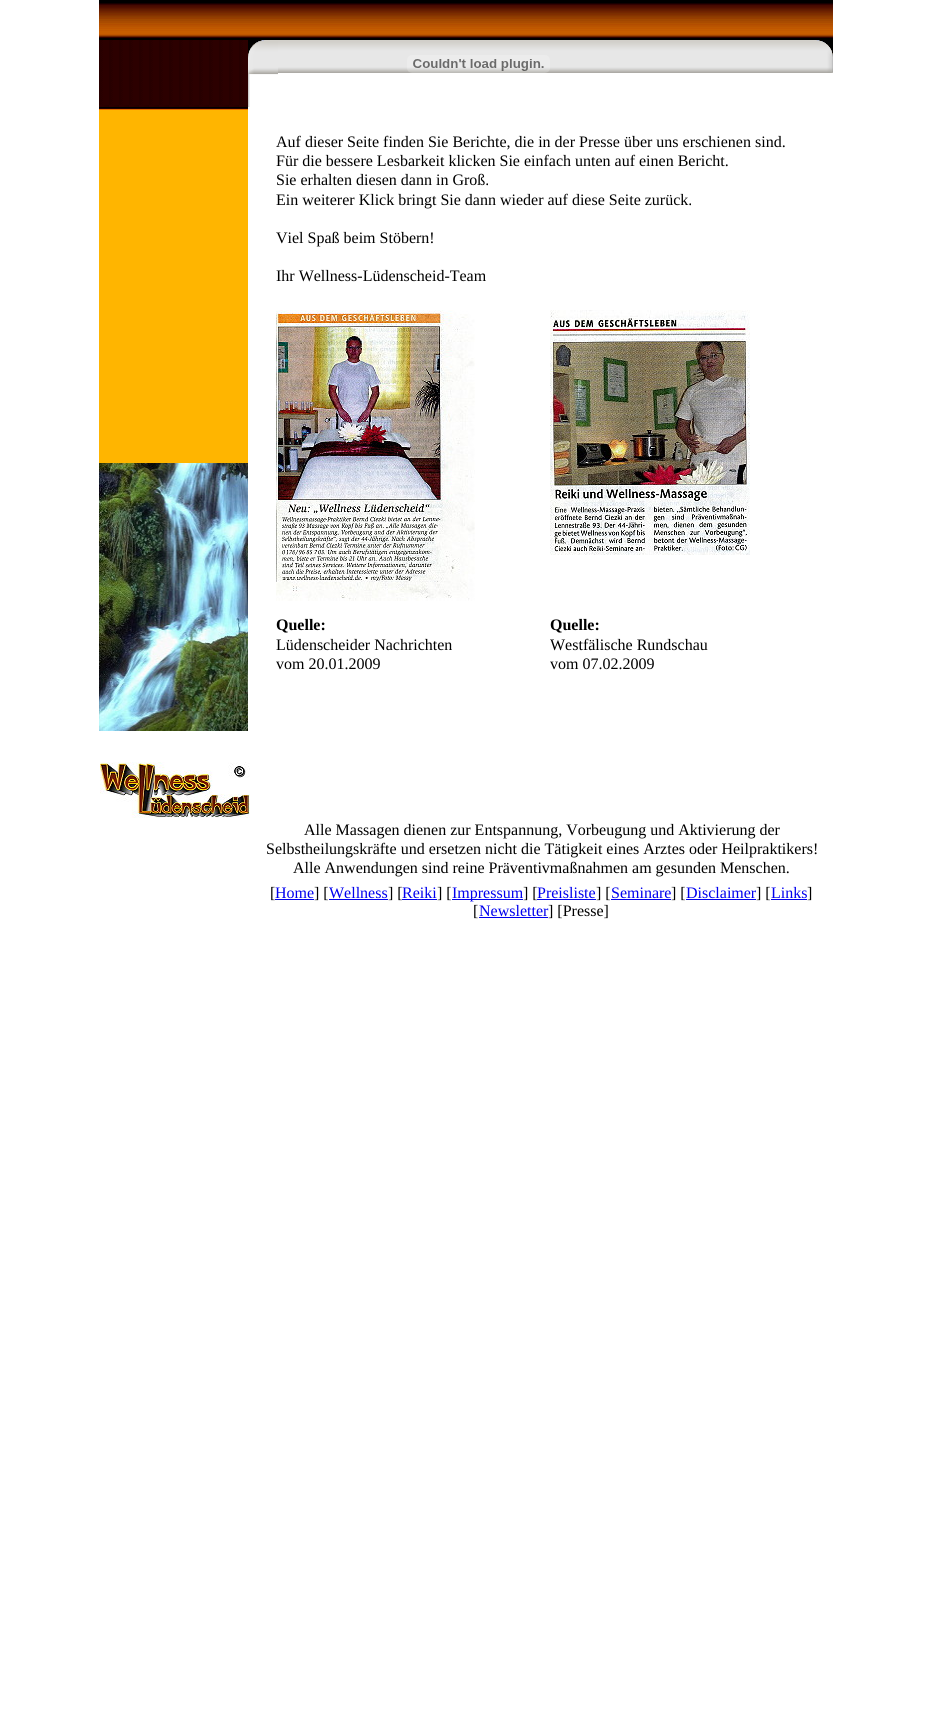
#include <cairo.h>
#include <math.h>
#include <stddef.h>

typedef struct { double x, y; const char *s; } line_t;

static void ink(cairo_t *ctx, unsigned color) {
    cairo_set_source_rgb(ctx, (color >> 16) / 255.0, (color >> 8 & 255) / 255.0, (color & 255) / 255.0);
}

static void paste(cairo_t *ctx, const char *path, double x, double y, double w, double h) {
    cairo_surface_t *image = cairo_image_surface_create_from_png(path);
    cairo_save(ctx);
    cairo_set_source_surface(ctx, image, x, y);
    cairo_rectangle(ctx, x, y, w, h);
    cairo_fill(ctx);
    cairo_restore(ctx);
    cairo_surface_destroy(image);
}

int main(void) {
    cairo_surface_t *surface = cairo_image_surface_create(CAIRO_FORMAT_RGB24, 931, 1709);
    cairo_t *ctx = cairo_create(surface);
    cairo_font_options_t *options = cairo_font_options_create();
    cairo_font_options_set_hint_metrics(options, CAIRO_HINT_METRICS_OFF);
    cairo_font_options_set_hint_style(options, CAIRO_HINT_STYLE_NONE);
    cairo_set_font_options(ctx, options);
    cairo_set_miter_limit(ctx, 4);
    ink(ctx, 0xFFFFFF);
    cairo_paint(ctx);
    paste(ctx, "media/1.png", 99, 0, 149, 40);
    paste(ctx, "media/2.png", 248, 0, 30, 40);
    paste(ctx, "media/3.png", 278, 0, 525, 40);
    paste(ctx, "media/2.png", 803, 0, 30, 40);
    paste(ctx, "media/4.png", 99, 40, 149, 65);
    paste(ctx, "media/5.png", 99, 105, 149, 10);
    paste(ctx, "media/6.png", 248, 40, 30, 67);
    paste(ctx, "media/7.png", 278, 40, 525, 33);
    paste(ctx, "media/8.png", 407, 55, 143, 18);
    paste(ctx, "media/9.png", 803, 40, 13, 33);
    paste(ctx, "media/10.png", 816, 40, 17, 33);
    ink(ctx, 0xFFB500);
    cairo_rectangle(ctx, 99, 115, 149, 348);
    cairo_fill(ctx);
    paste(ctx, "media/11.png", 99, 463, 149, 268);
    paste(ctx, "media/12.png", 100, 762, 150, 56);
    cairo_select_font_face(ctx, "Liberation Serif", CAIRO_FONT_SLANT_NORMAL, CAIRO_FONT_WEIGHT_NORMAL);
    cairo_set_font_size(ctx, 16);
    ink(ctx, 0x000000);
    {
        static const line_t items[] = {
            {276, 147, "Auf dieser Seite finden Sie Berichte, die in der Presse über uns erschienen sind."},
            {276, 166, "Für die bessere Lesbarkeit klicken Sie einfach unten auf einen Bericht."},
            {276, 185, "Sie erhalten diesen dann in Groß."},
            {276, 205, "Ein weiterer Klick bringt Sie dann wieder auf diese Seite zurück."},
            {276, 243, "Viel Spaß beim Stöbern!"},
            {276, 281, "Ihr Wellness-Lüdenscheid-Team"},
        };
        for (size_t i = 0; i < sizeof items / sizeof *items; i++) {
            cairo_move_to(ctx, items[i].x, items[i].y);
            cairo_show_text(ctx, items[i].s);
        }
    }
    paste(ctx, "media/13.png", 276, 310, 199, 291);
    cairo_select_font_face(ctx, "Liberation Serif", CAIRO_FONT_SLANT_NORMAL, CAIRO_FONT_WEIGHT_BOLD);
    cairo_move_to(ctx, 276, 630);
    cairo_show_text(ctx, "Quelle:");
    cairo_select_font_face(ctx, "Liberation Serif", CAIRO_FONT_SLANT_NORMAL, CAIRO_FONT_WEIGHT_NORMAL);
    cairo_move_to(ctx, 276, 650);
    cairo_show_text(ctx, "Lüdenscheider Nachrichten");
    cairo_move_to(ctx, 276, 669);
    cairo_show_text(ctx, "vom 20.01.2009");
    paste(ctx, "media/14.png", 550, 310, 200, 245);
    cairo_select_font_face(ctx, "Liberation Serif", CAIRO_FONT_SLANT_NORMAL, CAIRO_FONT_WEIGHT_BOLD);
    cairo_move_to(ctx, 550, 630);
    cairo_show_text(ctx, "Quelle:");
    cairo_select_font_face(ctx, "Liberation Serif", CAIRO_FONT_SLANT_NORMAL, CAIRO_FONT_WEIGHT_NORMAL);
    {
        static const line_t items[] = {
            {550, 650, "Westfälische Rundschau"},
            {550, 669, "vom 07.02.2009"},
            {304, 835, "Alle Massagen dienen zur Entspannung, Vorbeugung und Aktivierung der"},
            {266, 854, "Selbstheilungskräfte und ersetzen nicht die Tätigkeit eines Arztes oder Heilpraktikers!"},
            {293, 873, "Alle Anwendungen sind reine Präventivmaßnahmen am gesunden Menschen."},
            {270, 898, "["},
        };
        for (size_t i = 0; i < sizeof items / sizeof *items; i++) {
            cairo_move_to(ctx, items[i].x, items[i].y);
            cairo_show_text(ctx, items[i].s);
        }
    }
    ink(ctx, 0x0000EE);
    cairo_move_to(ctx, 275, 898);
    cairo_show_text(ctx, "Home");
    cairo_rectangle(ctx, 275, 899, 39, 1);
    cairo_fill(ctx);
    ink(ctx, 0x000000);
    cairo_move_to(ctx, 314, 898);
    cairo_show_text(ctx, "] [");
    ink(ctx, 0x0000EE);
    cairo_move_to(ctx, 329, 898);
    cairo_show_text(ctx, "Wellness");
    cairo_rectangle(ctx, 329, 899, 59, 1);
    cairo_fill(ctx);
    ink(ctx, 0x000000);
    cairo_move_to(ctx, 388, 898);
    cairo_show_text(ctx, "] [");
    ink(ctx, 0x0000EE);
    cairo_move_to(ctx, 402, 898);
    cairo_show_text(ctx, "Reiki");
    cairo_rectangle(ctx, 402, 899, 35, 1);
    cairo_fill(ctx);
    ink(ctx, 0x000000);
    cairo_move_to(ctx, 437, 898);
    cairo_show_text(ctx, "] [");
    ink(ctx, 0x0000EE);
    cairo_rectangle(ctx, 452, 899, 71, 1);
    cairo_fill(ctx);
    cairo_move_to(ctx, 452, 898);
    cairo_show_text(ctx, "Impressum");
    ink(ctx, 0x000000);
    cairo_move_to(ctx, 523, 898);
    cairo_show_text(ctx, "] [");
    ink(ctx, 0x0000EE);
    cairo_move_to(ctx, 537, 898);
    cairo_show_text(ctx, "Preisliste");
    cairo_rectangle(ctx, 537, 899, 59, 1);
    cairo_fill(ctx);
    ink(ctx, 0x000000);
    cairo_move_to(ctx, 596, 898);
    cairo_show_text(ctx, "] [");
    ink(ctx, 0x0000EE);
    cairo_move_to(ctx, 611, 898);
    cairo_show_text(ctx, "Seminare");
    cairo_rectangle(ctx, 611, 899, 60, 1);
    cairo_fill(ctx);
    ink(ctx, 0x000000);
    cairo_move_to(ctx, 671, 898);
    cairo_show_text(ctx, "] [");
    ink(ctx, 0x0000EE);
    cairo_move_to(ctx, 686, 898);
    cairo_show_text(ctx, "Disclaimer");
    cairo_rectangle(ctx, 686, 899, 70, 1);
    cairo_fill(ctx);
    ink(ctx, 0x000000);
    cairo_move_to(ctx, 756, 898);
    cairo_show_text(ctx, "] [");
    ink(ctx, 0x0000EE);
    cairo_move_to(ctx, 771, 898);
    cairo_show_text(ctx, "Links");
    cairo_rectangle(ctx, 771, 899, 36, 1);
    cairo_fill(ctx);
    ink(ctx, 0x000000);
    cairo_move_to(ctx, 807, 898);
    cairo_show_text(ctx, "]");
    cairo_move_to(ctx, 473, 916);
    cairo_show_text(ctx, "[");
    ink(ctx, 0x0000EE);
    cairo_move_to(ctx, 479, 916);
    cairo_show_text(ctx, "Newsletter");
    cairo_rectangle(ctx, 479, 917, 69, 1);
    cairo_fill(ctx);
    ink(ctx, 0x000000);
    cairo_move_to(ctx, 548, 916);
    cairo_show_text(ctx, "] [Presse]");
    cairo_surface_write_to_png(surface, "image.png");
    cairo_font_options_destroy(options);
    cairo_destroy(ctx);
    cairo_surface_destroy(surface);
    return 0;
}
